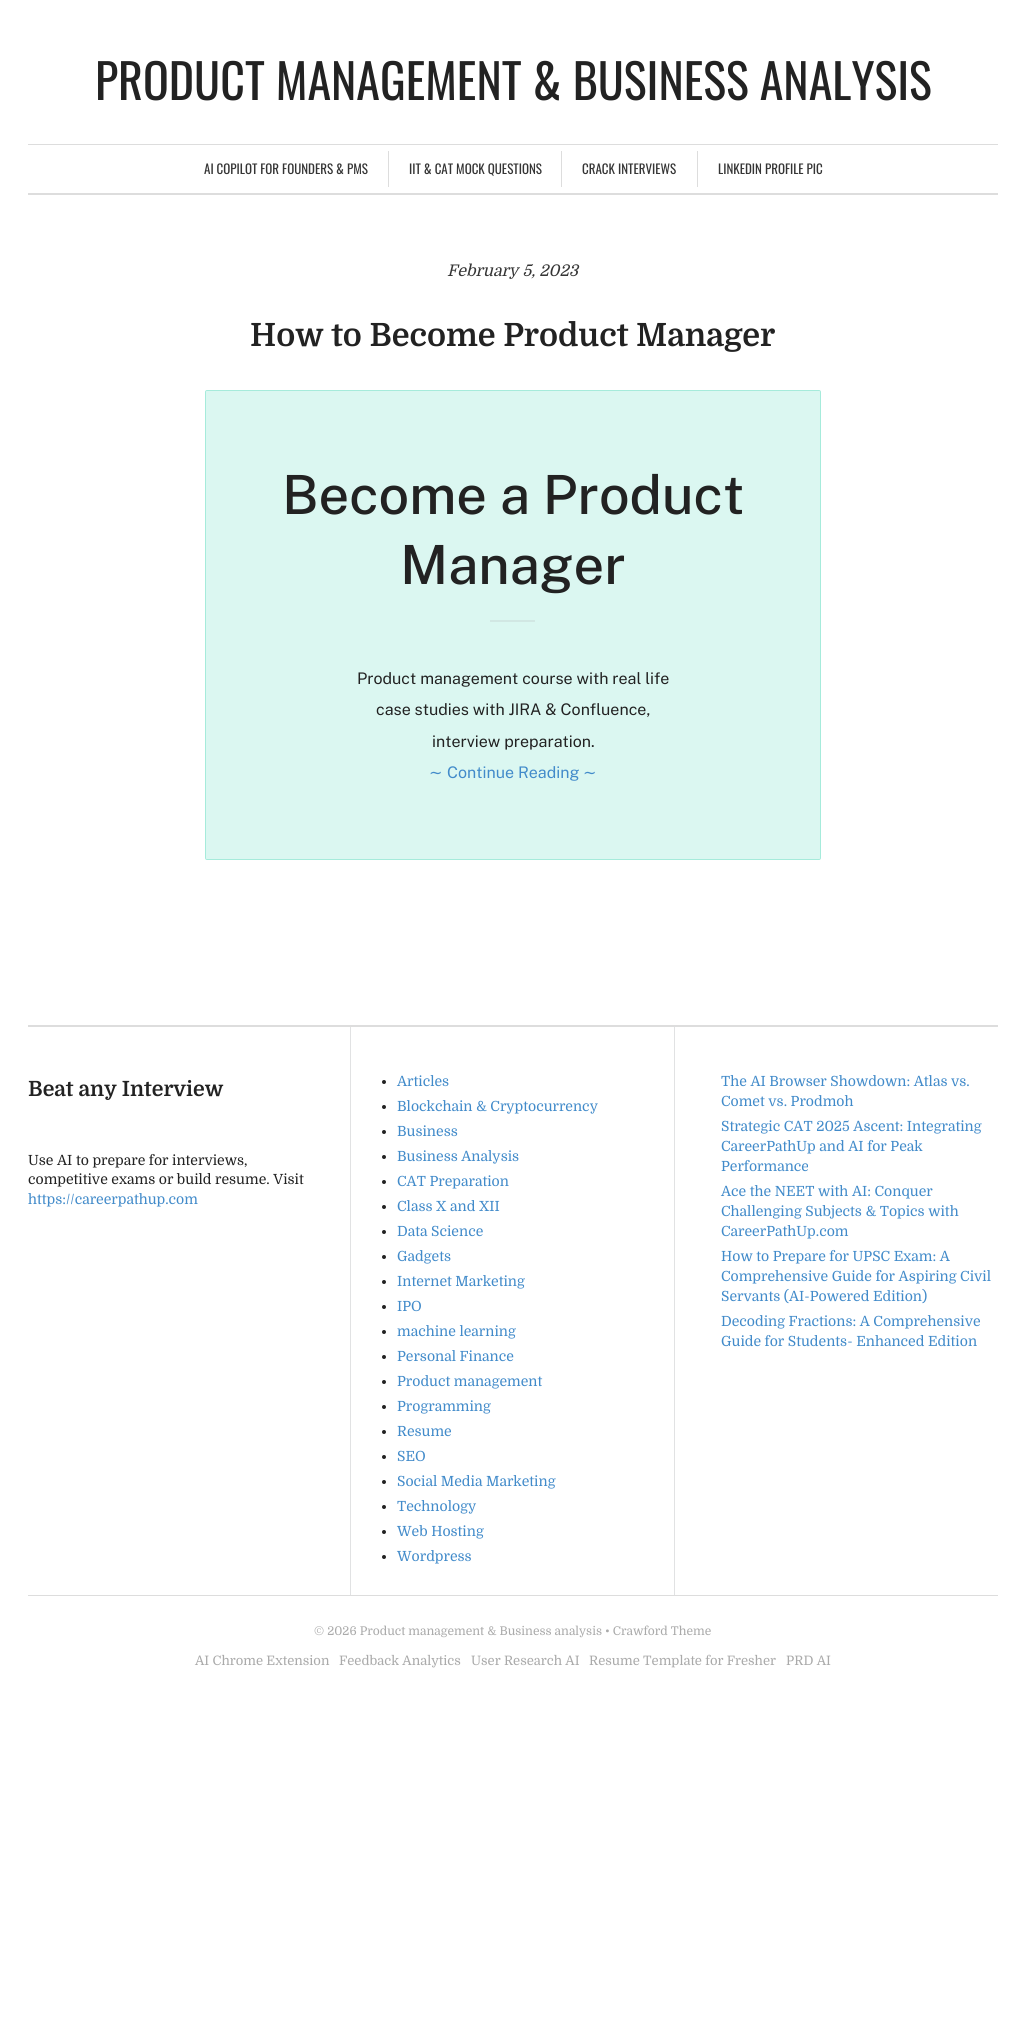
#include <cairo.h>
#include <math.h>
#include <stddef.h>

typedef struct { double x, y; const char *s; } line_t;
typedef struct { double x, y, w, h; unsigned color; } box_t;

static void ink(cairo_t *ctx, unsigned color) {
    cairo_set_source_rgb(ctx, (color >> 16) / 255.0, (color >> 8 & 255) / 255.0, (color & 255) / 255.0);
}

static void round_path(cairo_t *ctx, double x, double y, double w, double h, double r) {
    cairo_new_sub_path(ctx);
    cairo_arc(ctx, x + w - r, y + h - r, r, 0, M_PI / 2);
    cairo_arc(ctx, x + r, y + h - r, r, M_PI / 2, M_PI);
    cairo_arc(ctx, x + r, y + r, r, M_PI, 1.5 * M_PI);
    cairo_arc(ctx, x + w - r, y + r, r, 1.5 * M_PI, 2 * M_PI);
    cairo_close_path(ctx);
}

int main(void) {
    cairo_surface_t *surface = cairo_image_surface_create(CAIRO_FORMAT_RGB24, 1026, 2044);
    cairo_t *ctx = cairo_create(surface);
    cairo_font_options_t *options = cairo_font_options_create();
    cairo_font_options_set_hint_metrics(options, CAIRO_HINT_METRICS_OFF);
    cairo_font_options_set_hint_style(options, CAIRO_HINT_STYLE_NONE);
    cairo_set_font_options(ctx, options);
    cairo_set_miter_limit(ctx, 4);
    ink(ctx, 0xFFFFFF);
    cairo_paint(ctx);
    cairo_select_font_face(ctx, "Oswald", CAIRO_FONT_SLANT_NORMAL, CAIRO_FONT_WEIGHT_NORMAL);
    cairo_set_font_size(ctx, 48);
    ink(ctx, 0x222222);
    cairo_move_to(ctx, 95, 100);
    cairo_show_text(ctx, "PRODUCT MANAGEMENT & BUSINESS ANALYSIS");
    {
        static const box_t items[] = {
            {28, 144, 970, 1, 0xDDDDDD},
            {28, 193, 970, 2, 0xDDDDDD},
            {388, 151, 1, 36, 0xDDDDDD},
        };
        for (size_t i = 0; i < sizeof items / sizeof *items; i++) {
            ink(ctx, items[i].color);
            cairo_rectangle(ctx, items[i].x, items[i].y, items[i].w, items[i].h);
            cairo_fill(ctx);
        }
    }
    cairo_set_font_size(ctx, 13);
    ink(ctx, 0x353535);
    cairo_move_to(ctx, 204, 174);
    cairo_show_text(ctx, "AI COPILOT FOR FOUNDERS & PMS");
    ink(ctx, 0xDDDDDD);
    cairo_rectangle(ctx, 561, 151, 1, 36);
    cairo_fill(ctx);
    ink(ctx, 0x353535);
    cairo_move_to(ctx, 409, 174);
    cairo_show_text(ctx, "IIT & CAT MOCK QUESTIONS");
    ink(ctx, 0xDDDDDD);
    cairo_rectangle(ctx, 697, 151, 1, 36);
    cairo_fill(ctx);
    ink(ctx, 0x353535);
    cairo_move_to(ctx, 582, 174);
    cairo_show_text(ctx, "CRACK INTERVIEWS");
    cairo_move_to(ctx, 718, 174);
    cairo_show_text(ctx, "LINKEDIN PROFILE PIC");
    cairo_select_font_face(ctx, "Domine", CAIRO_FONT_SLANT_ITALIC, CAIRO_FONT_WEIGHT_NORMAL);
    cairo_set_font_size(ctx, 16);
    cairo_move_to(ctx, 447, 276);
    cairo_show_text(ctx, "February 5, 2023");
    cairo_select_font_face(ctx, "Domine", CAIRO_FONT_SLANT_NORMAL, CAIRO_FONT_WEIGHT_BOLD);
    cairo_set_font_size(ctx, 32);
    ink(ctx, 0x222222);
    cairo_move_to(ctx, 250, 346);
    cairo_show_text(ctx, "How to Become Product Manager");
    ink(ctx, 0xA6EBDC);
    round_path(ctx, 206, 391, 614, 468, 1);
    cairo_fill(ctx);
    cairo_set_source_rgba(ctx, 1, 1, 1, 0.6);
    round_path(ctx, 205.5, 390.5, 615, 469, 1.5);
    cairo_fill_preserve(ctx);
    ink(ctx, 0xA6EBDB);
    cairo_set_line_width(ctx, 1);
    cairo_stroke(ctx);
    cairo_select_font_face(ctx, "Public Sans Medium", CAIRO_FONT_SLANT_NORMAL, CAIRO_FONT_WEIGHT_NORMAL);
    cairo_set_font_size(ctx, 54);
    ink(ctx, 0x222222);
    cairo_move_to(ctx, 282, 514);
    cairo_show_text(ctx, "Become a Product");
    cairo_move_to(ctx, 400, 584);
    cairo_show_text(ctx, "Manager");
    ink(ctx, 0xD1E7E3);
    cairo_rectangle(ctx, 490, 620, 45, 2);
    cairo_fill(ctx);
    cairo_select_font_face(ctx, "Public Sans", CAIRO_FONT_SLANT_NORMAL, CAIRO_FONT_WEIGHT_NORMAL);
    cairo_set_font_size(ctx, 16);
    ink(ctx, 0x222222);
    {
        static const line_t items[] = {
            {357, 684, "Product management course with real life"},
            {376, 715, "case studies with JIRA & Confluence,"},
            {432, 747, "interview preparation."},
        };
        for (size_t i = 0; i < sizeof items / sizeof *items; i++) {
            cairo_move_to(ctx, items[i].x, items[i].y);
            cairo_show_text(ctx, items[i].s);
        }
    }
    cairo_select_font_face(ctx, "DejaVu Sans", CAIRO_FONT_SLANT_NORMAL, CAIRO_FONT_WEIGHT_NORMAL);
    ink(ctx, 0x428BCA);
    cairo_move_to(ctx, 429, 778);
    cairo_show_text(ctx, "∼");
    cairo_select_font_face(ctx, "Public Sans", CAIRO_FONT_SLANT_NORMAL, CAIRO_FONT_WEIGHT_NORMAL);
    cairo_move_to(ctx, 447, 778);
    cairo_show_text(ctx, "Continue Reading");
    cairo_select_font_face(ctx, "DejaVu Sans", CAIRO_FONT_SLANT_NORMAL, CAIRO_FONT_WEIGHT_NORMAL);
    cairo_move_to(ctx, 583, 778);
    cairo_show_text(ctx, "∼");
    ink(ctx, 0xDDDDDD);
    cairo_rectangle(ctx, 28, 1025, 970, 2);
    cairo_fill(ctx);
    ink(ctx, 0xE1E2E3);
    cairo_rectangle(ctx, 350, 1027, 1, 568);
    cairo_fill(ctx);
    cairo_select_font_face(ctx, "Domine", CAIRO_FONT_SLANT_NORMAL, CAIRO_FONT_WEIGHT_BOLD);
    cairo_set_font_size(ctx, 21);
    ink(ctx, 0x222222);
    cairo_move_to(ctx, 28, 1096);
    cairo_show_text(ctx, "Beat any Interview");
    cairo_select_font_face(ctx, "Domine", CAIRO_FONT_SLANT_NORMAL, CAIRO_FONT_WEIGHT_NORMAL);
    cairo_set_font_size(ctx, 14);
    cairo_move_to(ctx, 28, 1165);
    cairo_show_text(ctx, "Use AI to prepare for interviews,");
    cairo_move_to(ctx, 28, 1184);
    cairo_show_text(ctx, "competitive exams or build resume. Visit");
    ink(ctx, 0x428BCA);
    cairo_move_to(ctx, 28, 1204);
    cairo_show_text(ctx, "https://careerpathup.com");
    ink(ctx, 0xE1E2E3);
    cairo_rectangle(ctx, 674, 1027, 1, 568);
    cairo_fill(ctx);
    ink(ctx, 0x222222);
    cairo_arc(ctx, 384, 1082, 2, 0, 2 * M_PI);
    cairo_fill(ctx);
    ink(ctx, 0x428BCA);
    cairo_move_to(ctx, 397, 1086);
    cairo_show_text(ctx, "Articles");
    ink(ctx, 0x222222);
    cairo_new_path(ctx);
    cairo_arc(ctx, 384, 1107, 2, 0, 2 * M_PI);
    cairo_fill(ctx);
    ink(ctx, 0x428BCA);
    cairo_move_to(ctx, 397, 1111);
    cairo_show_text(ctx, "Blockchain & Cryptocurrency");
    ink(ctx, 0x222222);
    cairo_new_path(ctx);
    cairo_arc(ctx, 384, 1132, 2, 0, 2 * M_PI);
    cairo_fill(ctx);
    ink(ctx, 0x428BCA);
    cairo_move_to(ctx, 397, 1136);
    cairo_show_text(ctx, "Business");
    ink(ctx, 0x222222);
    cairo_new_path(ctx);
    cairo_arc(ctx, 384, 1157, 2, 0, 2 * M_PI);
    cairo_fill(ctx);
    ink(ctx, 0x428BCA);
    cairo_move_to(ctx, 397, 1161);
    cairo_show_text(ctx, "Business Analysis");
    ink(ctx, 0x222222);
    cairo_new_path(ctx);
    cairo_arc(ctx, 384, 1182, 2, 0, 2 * M_PI);
    cairo_fill(ctx);
    ink(ctx, 0x428BCA);
    cairo_move_to(ctx, 397, 1186);
    cairo_show_text(ctx, "CAT Preparation");
    ink(ctx, 0x222222);
    cairo_new_path(ctx);
    cairo_arc(ctx, 384, 1207, 2, 0, 2 * M_PI);
    cairo_fill(ctx);
    ink(ctx, 0x428BCA);
    cairo_move_to(ctx, 397, 1211);
    cairo_show_text(ctx, "Class X and XII");
    ink(ctx, 0x222222);
    cairo_new_path(ctx);
    cairo_arc(ctx, 384, 1232, 2, 0, 2 * M_PI);
    cairo_fill(ctx);
    ink(ctx, 0x428BCA);
    cairo_move_to(ctx, 397, 1236);
    cairo_show_text(ctx, "Data Science");
    ink(ctx, 0x222222);
    cairo_new_path(ctx);
    cairo_arc(ctx, 384, 1257, 2, 0, 2 * M_PI);
    cairo_fill(ctx);
    ink(ctx, 0x428BCA);
    cairo_move_to(ctx, 397, 1261);
    cairo_show_text(ctx, "Gadgets");
    ink(ctx, 0x222222);
    cairo_new_path(ctx);
    cairo_arc(ctx, 384, 1282, 2, 0, 2 * M_PI);
    cairo_fill(ctx);
    ink(ctx, 0x428BCA);
    cairo_move_to(ctx, 397, 1286);
    cairo_show_text(ctx, "Internet Marketing");
    ink(ctx, 0x222222);
    cairo_new_path(ctx);
    cairo_arc(ctx, 384, 1307, 2, 0, 2 * M_PI);
    cairo_fill(ctx);
    ink(ctx, 0x428BCA);
    cairo_move_to(ctx, 397, 1311);
    cairo_show_text(ctx, "IPO");
    ink(ctx, 0x222222);
    cairo_new_path(ctx);
    cairo_arc(ctx, 384, 1332, 2, 0, 2 * M_PI);
    cairo_fill(ctx);
    ink(ctx, 0x428BCA);
    cairo_move_to(ctx, 397, 1336);
    cairo_show_text(ctx, "machine learning");
    ink(ctx, 0x222222);
    cairo_new_path(ctx);
    cairo_arc(ctx, 384, 1357, 2, 0, 2 * M_PI);
    cairo_fill(ctx);
    ink(ctx, 0x428BCA);
    cairo_move_to(ctx, 397, 1361);
    cairo_show_text(ctx, "Personal Finance");
    ink(ctx, 0x222222);
    cairo_new_path(ctx);
    cairo_arc(ctx, 384, 1382, 2, 0, 2 * M_PI);
    cairo_fill(ctx);
    ink(ctx, 0x428BCA);
    cairo_move_to(ctx, 397, 1386);
    cairo_show_text(ctx, "Product management");
    ink(ctx, 0x222222);
    cairo_new_path(ctx);
    cairo_arc(ctx, 384, 1407, 2, 0, 2 * M_PI);
    cairo_fill(ctx);
    ink(ctx, 0x428BCA);
    cairo_move_to(ctx, 397, 1411);
    cairo_show_text(ctx, "Programming");
    ink(ctx, 0x222222);
    cairo_new_path(ctx);
    cairo_arc(ctx, 384, 1432, 2, 0, 2 * M_PI);
    cairo_fill(ctx);
    ink(ctx, 0x428BCA);
    cairo_move_to(ctx, 397, 1436);
    cairo_show_text(ctx, "Resume");
    ink(ctx, 0x222222);
    cairo_new_path(ctx);
    cairo_arc(ctx, 384, 1457, 2, 0, 2 * M_PI);
    cairo_fill(ctx);
    ink(ctx, 0x428BCA);
    cairo_move_to(ctx, 397, 1461);
    cairo_show_text(ctx, "SEO");
    ink(ctx, 0x222222);
    cairo_new_path(ctx);
    cairo_arc(ctx, 384, 1482, 2, 0, 2 * M_PI);
    cairo_fill(ctx);
    ink(ctx, 0x428BCA);
    cairo_move_to(ctx, 397, 1486);
    cairo_show_text(ctx, "Social Media Marketing");
    ink(ctx, 0x222222);
    cairo_new_path(ctx);
    cairo_arc(ctx, 384, 1507, 2, 0, 2 * M_PI);
    cairo_fill(ctx);
    ink(ctx, 0x428BCA);
    cairo_move_to(ctx, 397, 1511);
    cairo_show_text(ctx, "Technology");
    ink(ctx, 0x222222);
    cairo_new_path(ctx);
    cairo_arc(ctx, 384, 1532, 2, 0, 2 * M_PI);
    cairo_fill(ctx);
    ink(ctx, 0x428BCA);
    cairo_move_to(ctx, 397, 1536);
    cairo_show_text(ctx, "Web Hosting");
    ink(ctx, 0x222222);
    cairo_new_path(ctx);
    cairo_arc(ctx, 384, 1557, 2, 0, 2 * M_PI);
    cairo_fill(ctx);
    ink(ctx, 0x428BCA);
    {
        static const line_t items[] = {
            {397, 1561, "Wordpress"},
            {721, 1086, "The AI Browser Showdown: Atlas vs."},
            {721, 1106, "Comet vs. Prodmoh"},
            {721, 1131, "Strategic CAT 2025 Ascent: Integrating"},
            {721, 1151, "CareerPathUp and AI for Peak"},
            {721, 1171, "Performance"},
            {721, 1196, "Ace the NEET with AI: Conquer"},
            {721, 1216, "Challenging Subjects & Topics with"},
            {721, 1236, "CareerPathUp.com"},
            {721, 1261, "How to Prepare for UPSC Exam: A"},
            {721, 1281, "Comprehensive Guide for Aspiring Civil"},
            {721, 1301, "Servants (AI-Powered Edition)"},
            {721, 1326, "Decoding Fractions: A Comprehensive"},
            {721, 1346, "Guide for Students- Enhanced Edition"},
        };
        for (size_t i = 0; i < sizeof items / sizeof *items; i++) {
            cairo_move_to(ctx, items[i].x, items[i].y);
            cairo_show_text(ctx, items[i].s);
        }
    }
    ink(ctx, 0xDDDDDD);
    cairo_rectangle(ctx, 28, 1595, 970, 1);
    cairo_fill(ctx);
    cairo_set_font_size(ctx, 12);
    ink(ctx, 0xAAAAAA);
    cairo_move_to(ctx, 314, 1635);
    cairo_show_text(ctx, "© 2026 Product management & Business analysis • Crawford Theme");
    cairo_set_font_size(ctx, 13);
    {
        static const line_t items[] = {
            {195, 1665, "AI Chrome Extension"},
            {339, 1665, "Feedback Analytics"},
            {471, 1665, "User Research AI"},
            {589, 1665, "Resume Template for Fresher"},
            {786, 1665, "PRD AI"},
        };
        for (size_t i = 0; i < sizeof items / sizeof *items; i++) {
            cairo_move_to(ctx, items[i].x, items[i].y);
            cairo_show_text(ctx, items[i].s);
        }
    }
    cairo_surface_write_to_png(surface, "image.png");
    cairo_font_options_destroy(options);
    cairo_destroy(ctx);
    cairo_surface_destroy(surface);
    return 0;
}
